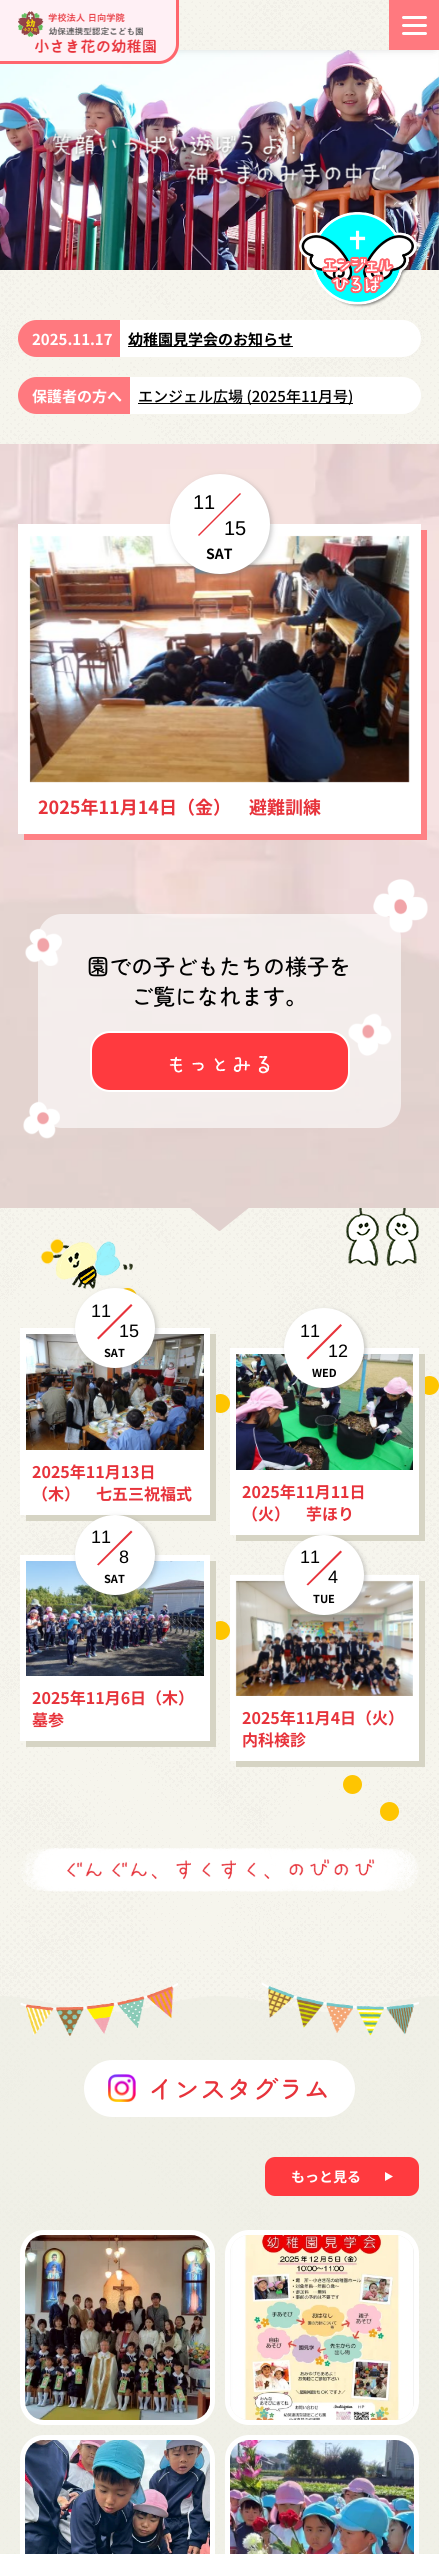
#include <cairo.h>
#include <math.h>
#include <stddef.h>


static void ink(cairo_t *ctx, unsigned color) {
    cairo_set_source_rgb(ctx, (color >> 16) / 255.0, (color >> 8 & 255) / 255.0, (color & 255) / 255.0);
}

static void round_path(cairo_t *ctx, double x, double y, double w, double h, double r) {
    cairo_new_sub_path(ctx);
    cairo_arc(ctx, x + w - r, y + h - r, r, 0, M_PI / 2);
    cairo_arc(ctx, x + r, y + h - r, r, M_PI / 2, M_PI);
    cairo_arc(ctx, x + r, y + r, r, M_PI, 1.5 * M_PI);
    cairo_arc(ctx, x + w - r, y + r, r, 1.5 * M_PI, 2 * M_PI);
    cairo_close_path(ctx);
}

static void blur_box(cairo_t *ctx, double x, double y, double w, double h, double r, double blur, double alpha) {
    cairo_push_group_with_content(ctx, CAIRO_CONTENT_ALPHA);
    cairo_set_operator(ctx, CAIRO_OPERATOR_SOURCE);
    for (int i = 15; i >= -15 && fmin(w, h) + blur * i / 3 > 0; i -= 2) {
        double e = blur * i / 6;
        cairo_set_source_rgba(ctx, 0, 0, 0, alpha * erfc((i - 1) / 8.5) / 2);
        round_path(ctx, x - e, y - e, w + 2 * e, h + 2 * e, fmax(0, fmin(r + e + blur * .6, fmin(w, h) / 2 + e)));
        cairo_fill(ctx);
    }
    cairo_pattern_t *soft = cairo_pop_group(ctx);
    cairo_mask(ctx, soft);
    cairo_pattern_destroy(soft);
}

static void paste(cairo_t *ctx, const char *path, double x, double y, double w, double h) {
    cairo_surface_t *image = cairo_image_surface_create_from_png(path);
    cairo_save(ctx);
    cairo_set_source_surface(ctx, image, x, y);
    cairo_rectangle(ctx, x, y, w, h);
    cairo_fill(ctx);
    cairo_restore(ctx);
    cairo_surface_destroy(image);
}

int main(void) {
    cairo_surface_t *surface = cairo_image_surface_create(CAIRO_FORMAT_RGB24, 439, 2554);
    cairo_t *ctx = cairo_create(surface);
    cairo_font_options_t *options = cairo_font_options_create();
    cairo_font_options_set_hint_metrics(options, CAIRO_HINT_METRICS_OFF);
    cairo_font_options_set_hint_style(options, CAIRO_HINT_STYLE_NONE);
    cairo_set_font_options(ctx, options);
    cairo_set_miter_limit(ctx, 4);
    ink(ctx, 0xFFFFFF);
    cairo_paint(ctx);
    paste(ctx, "media/3.png", 438, 50, 1, 220);
    paste(ctx, "media/4.png", 0, 50, 439, 220);
    ink(ctx, 0x646464);
    blur_box(ctx, 5, 7, 429, 40, 0, 5, 0.4);
    paste(ctx, "media/1.png", 174, 0, 215, 50);
    ink(ctx, 0xFFF0F5);
    cairo_new_path(ctx);
    cairo_move_to(ctx, 0, 0);
    cairo_line_to(ctx, 176, 0);
    cairo_line_to(ctx, 176, 44);
    cairo_curve_to(ctx, 176, 53.5, 168.5, 61, 159, 61);
    cairo_line_to(ctx, 0, 61);
    cairo_close_path(ctx);
    cairo_fill(ctx);
    ink(ctx, 0xFF666D);
    cairo_set_fill_rule(ctx, CAIRO_FILL_RULE_EVEN_ODD);
    cairo_new_path(ctx);
    cairo_move_to(ctx, 0, 0);
    cairo_line_to(ctx, 179, 0);
    cairo_line_to(ctx, 179, 44);
    cairo_curve_to(ctx, 179, 55, 170, 64, 159, 64);
    cairo_line_to(ctx, 0, 64);
    cairo_close_path(ctx);
    cairo_move_to(ctx, 0, 0);
    cairo_line_to(ctx, 176, 0);
    cairo_line_to(ctx, 176, 44);
    cairo_curve_to(ctx, 176, 53, 168, 61, 159, 61);
    cairo_line_to(ctx, 0, 61);
    cairo_close_path(ctx);
    cairo_fill(ctx);
    paste(ctx, "media/2.png", 18, 11, 138, 42);
    ink(ctx, 0xFF797F);
    cairo_rectangle(ctx, 389, 0, 50, 50);
    cairo_fill(ctx);
    ink(ctx, 0xFFFFFF);
    round_path(ctx, 402, 16, 25, 3, 1.5);
    cairo_fill(ctx);
    round_path(ctx, 402, 24, 25, 3, 1.5);
    cairo_fill(ctx);
    round_path(ctx, 402, 32, 25, 3, 1.5);
    cairo_fill(ctx);
    paste(ctx, "media/5.png", 48, 129, 342, 62);
    paste(ctx, "media/7.png", 0, 270, 439, 174);
    paste(ctx, "media/6.png", 299, 212, 120, 96);
    ink(ctx, 0xFF797F);
    cairo_new_path(ctx);
    cairo_move_to(ctx, 36.5, 320);
    cairo_line_to(ctx, 120, 320);
    cairo_line_to(ctx, 120, 357);
    cairo_line_to(ctx, 36.5, 357);
    cairo_curve_to(ctx, 26.5, 357, 18, 348.5, 18, 338.5);
    cairo_curve_to(ctx, 18, 328.5, 26.5, 320, 36.5, 320);
    cairo_close_path(ctx);
    cairo_fill(ctx);
    cairo_select_font_face(ctx, "Noto Sans JP", CAIRO_FONT_SLANT_NORMAL, CAIRO_FONT_WEIGHT_BOLD);
    cairo_set_font_size(ctx, 15);
    ink(ctx, 0xFFFFFF);
    cairo_move_to(ctx, 32, 345);
    cairo_show_text(ctx, "2025.11.17");
    cairo_new_path(ctx);
    cairo_move_to(ctx, 120, 320);
    cairo_line_to(ctx, 402.5, 320);
    cairo_curve_to(ctx, 412.5, 320, 421, 328.5, 421, 338.5);
    cairo_curve_to(ctx, 421, 348.5, 412.5, 357, 402.5, 357);
    cairo_line_to(ctx, 120, 357);
    cairo_close_path(ctx);
    cairo_fill(ctx);
    ink(ctx, 0x000000);
    cairo_rectangle(ctx, 128, 346, 165, 1);
    cairo_fill(ctx);
    cairo_move_to(ctx, 128, 345);
    cairo_show_text(ctx, "幼稚園見学会のお知らせ");
    ink(ctx, 0xFF797F);
    cairo_new_path(ctx);
    cairo_move_to(ctx, 36.5, 377);
    cairo_line_to(ctx, 130, 377);
    cairo_line_to(ctx, 130, 414);
    cairo_line_to(ctx, 36.5, 414);
    cairo_curve_to(ctx, 26.5, 414, 18, 405.5, 18, 395.5);
    cairo_curve_to(ctx, 18, 385.5, 26.5, 377, 36.5, 377);
    cairo_close_path(ctx);
    cairo_fill(ctx);
    ink(ctx, 0xFFFFFF);
    cairo_move_to(ctx, 32, 402);
    cairo_show_text(ctx, "保護者の方へ");
    cairo_new_path(ctx);
    cairo_move_to(ctx, 130, 377);
    cairo_line_to(ctx, 402.5, 377);
    cairo_curve_to(ctx, 412.5, 377, 421, 385.5, 421, 395.5);
    cairo_curve_to(ctx, 421, 405.5, 412.5, 414, 402.5, 414);
    cairo_line_to(ctx, 130, 414);
    cairo_close_path(ctx);
    cairo_fill(ctx);
    ink(ctx, 0x000000);
    cairo_rectangle(ctx, 138, 403, 215, 1);
    cairo_fill(ctx);
    cairo_select_font_face(ctx, "Noto Sans JP Medium", CAIRO_FONT_SLANT_NORMAL, CAIRO_FONT_WEIGHT_NORMAL);
    cairo_move_to(ctx, 138, 402);
    cairo_show_text(ctx, "エンジェル広場 (2025年11月号)");
    paste(ctx, "media/8.png", 0, 444, 439, 764);
    ink(ctx, 0xFF8185);
    cairo_set_fill_rule(ctx, CAIRO_FILL_RULE_WINDING);
    cairo_new_path(ctx);
    cairo_move_to(ctx, 24, 834);
    cairo_line_to(ctx, 24, 840);
    cairo_line_to(ctx, 427, 840);
    cairo_line_to(ctx, 427, 530);
    cairo_line_to(ctx, 421, 530);
    cairo_line_to(ctx, 421, 834);
    cairo_close_path(ctx);
    cairo_fill(ctx);
    ink(ctx, 0xFFFFFF);
    cairo_rectangle(ctx, 18, 524, 403, 310);
    cairo_fill(ctx);
    paste(ctx, "media/9.png", 29, 535, 381, 248);
    ink(ctx, 0x787878);
    blur_box(ctx, 172, 476, 100, 100, 50, 2.5, 0.4);
    ink(ctx, 0xFFFFFF);
    cairo_arc(ctx, 220, 524, 50, 0, 2 * M_PI);
    cairo_fill(ctx);
    cairo_select_font_face(ctx, "Liberation Sans", CAIRO_FONT_SLANT_NORMAL, CAIRO_FONT_WEIGHT_NORMAL);
    cairo_set_font_size(ctx, 20);
    ink(ctx, 0x000000);
    cairo_move_to(ctx, 193, 509);
    cairo_show_text(ctx, "11");
    cairo_move_to(ctx, 224, 535);
    cairo_show_text(ctx, "15");
    ink(ctx, 0xE7333B);
    cairo_new_path(ctx);
    cairo_move_to(ctx, 240, 493);
    cairo_line_to(ctx, 241, 494);
    cairo_line_to(ctx, 199, 536);
    cairo_line_to(ctx, 198, 535);
    cairo_close_path(ctx);
    cairo_fill(ctx);
    cairo_select_font_face(ctx, "Noto Sans JP", CAIRO_FONT_SLANT_NORMAL, CAIRO_FONT_WEIGHT_BOLD);
    cairo_set_font_size(ctx, 14);
    ink(ctx, 0x000000);
    cairo_move_to(ctx, 206, 559);
    cairo_show_text(ctx, "SAT");
    cairo_set_font_size(ctx, 18);
    ink(ctx, 0xE7333B);
    cairo_move_to(ctx, 38, 814);
    cairo_show_text(ctx, "2025年11月14日（金）　避難訓練");
    cairo_set_source_rgba(ctx, 1, 1, 1, 0.6);
    round_path(ctx, 38, 914, 363, 214, 24);
    cairo_fill(ctx);
    paste(ctx, "media/10.png", 373, 879, 55, 54);
    paste(ctx, "media/11.png", 25, 928, 37, 38);
    cairo_select_font_face(ctx, "Zen Maru Gothic Medium", CAIRO_FONT_SLANT_NORMAL, CAIRO_FONT_WEIGHT_NORMAL);
    cairo_set_font_size(ctx, 22);
    ink(ctx, 0x000000);
    cairo_move_to(ctx, 87, 975);
    cairo_show_text(ctx, "園での子どもたちの様子を");
    cairo_move_to(ctx, 131, 1005);
    cairo_show_text(ctx, "ご覧になれます。");
    ink(ctx, 0xFF3A3F);
    round_path(ctx, 91, 1032, 258, 59, 19);
    cairo_fill_preserve(ctx);
    ink(ctx, 0xFFFFFF);
    cairo_stroke(ctx);
    paste(ctx, "media/12.png", 169, 1056, 101, 18);
    paste(ctx, "media/13.png", 348, 1013, 44, 43);
    paste(ctx, "media/14.png", 23, 1101, 37, 38);
    paste(ctx, "media/15.png", 0, 1208, 439, 1346);
    ink(ctx, 0xE1D1CE);
    cairo_new_path(ctx);
    cairo_move_to(ctx, 190, 1208);
    cairo_line_to(ctx, 190, 1207);
    cairo_line_to(ctx, 250, 1207);
    cairo_line_to(ctx, 220, 1231);
    cairo_line_to(ctx, 219, 1231);
    cairo_close_path(ctx);
    cairo_fill(ctx);
    paste(ctx, "media/16.png", 0, 1996, 439, 16);
    paste(ctx, "media/17.png", 346, 1208, 73, 58);
    paste(ctx, "media/18.png", 40, 1238, 97, 57);
    ink(ctx, 0xD6D4C4);
    cairo_new_path(ctx);
    cairo_move_to(ctx, 26, 1515);
    cairo_line_to(ctx, 26, 1521);
    cairo_line_to(ctx, 216, 1521);
    cairo_line_to(ctx, 216, 1334);
    cairo_line_to(ctx, 210, 1334);
    cairo_line_to(ctx, 210, 1515);
    cairo_close_path(ctx);
    cairo_fill(ctx);
    ink(ctx, 0xFFFFFF);
    cairo_rectangle(ctx, 20, 1328, 190, 187);
    cairo_fill(ctx);
    paste(ctx, "media/19.png", 26, 1334, 178, 116);
    ink(ctx, 0x787878);
    blur_box(ctx, 77, 1290, 80, 80, 40, 2.5, 0.4);
    ink(ctx, 0xFFFFFF);
    cairo_arc(ctx, 115, 1328, 40, 0, 2 * M_PI);
    cairo_fill(ctx);
    cairo_select_font_face(ctx, "Liberation Sans", CAIRO_FONT_SLANT_NORMAL, CAIRO_FONT_WEIGHT_NORMAL);
    cairo_set_font_size(ctx, 18);
    ink(ctx, 0x000000);
    cairo_move_to(ctx, 91, 1317);
    cairo_show_text(ctx, "11");
    cairo_move_to(ctx, 119, 1337);
    cairo_show_text(ctx, "15");
    ink(ctx, 0xE7333B);
    cairo_new_path(ctx);
    cairo_move_to(ctx, 131, 1304);
    cairo_line_to(ctx, 132.5, 1305.5);
    cairo_line_to(ctx, 98.5, 1339.5);
    cairo_line_to(ctx, 97, 1338);
    cairo_close_path(ctx);
    cairo_fill(ctx);
    cairo_select_font_face(ctx, "Noto Sans JP", CAIRO_FONT_SLANT_NORMAL, CAIRO_FONT_WEIGHT_BOLD);
    cairo_set_font_size(ctx, 11);
    ink(ctx, 0x000000);
    cairo_move_to(ctx, 104, 1357);
    cairo_show_text(ctx, "SAT");
    cairo_set_font_size(ctx, 16);
    ink(ctx, 0xE7333B);
    cairo_move_to(ctx, 32, 1478);
    cairo_show_text(ctx, "2025年11月13日");
    cairo_move_to(ctx, 32, 1500);
    cairo_show_text(ctx, "（木）　七五三祝福式");
    paste(ctx, "media/20.png", 216, 1394, 14, 19);
    ink(ctx, 0xD6D4C4);
    cairo_new_path(ctx);
    cairo_move_to(ctx, 236, 1535);
    cairo_line_to(ctx, 236, 1541);
    cairo_line_to(ctx, 425, 1541);
    cairo_line_to(ctx, 425, 1354);
    cairo_line_to(ctx, 419, 1354);
    cairo_line_to(ctx, 419, 1535);
    cairo_close_path(ctx);
    cairo_fill(ctx);
    ink(ctx, 0xFFFFFF);
    cairo_rectangle(ctx, 230, 1348, 189, 187);
    cairo_fill(ctx);
    paste(ctx, "media/21.png", 236, 1354, 177, 116);
    ink(ctx, 0x787878);
    blur_box(ctx, 286, 1310, 80, 80, 40, 2.5, 0.4);
    ink(ctx, 0xFFFFFF);
    cairo_arc(ctx, 324, 1348, 40, 0, 2 * M_PI);
    cairo_fill(ctx);
    cairo_select_font_face(ctx, "Liberation Sans", CAIRO_FONT_SLANT_NORMAL, CAIRO_FONT_WEIGHT_NORMAL);
    cairo_set_font_size(ctx, 18);
    ink(ctx, 0x000000);
    cairo_move_to(ctx, 300, 1337);
    cairo_show_text(ctx, "11");
    cairo_move_to(ctx, 328, 1357);
    cairo_show_text(ctx, "12");
    ink(ctx, 0xE7333B);
    cairo_new_path(ctx);
    cairo_move_to(ctx, 340.5, 1324);
    cairo_line_to(ctx, 342, 1325.5);
    cairo_line_to(ctx, 308, 1359.5);
    cairo_line_to(ctx, 306.5, 1358);
    cairo_close_path(ctx);
    cairo_fill(ctx);
    cairo_select_font_face(ctx, "Noto Sans JP", CAIRO_FONT_SLANT_NORMAL, CAIRO_FONT_WEIGHT_BOLD);
    cairo_set_font_size(ctx, 11);
    ink(ctx, 0x000000);
    cairo_move_to(ctx, 312, 1377);
    cairo_show_text(ctx, "WED");
    cairo_set_font_size(ctx, 16);
    ink(ctx, 0xE7333B);
    cairo_move_to(ctx, 242, 1498);
    cairo_show_text(ctx, "2025年11月11日");
    cairo_move_to(ctx, 242, 1520);
    cairo_show_text(ctx, "（火）　芋ほり");
    paste(ctx, "media/22.png", 425, 1376, 14, 19);
    ink(ctx, 0xD6D4C4);
    cairo_new_path(ctx);
    cairo_move_to(ctx, 26, 1741);
    cairo_line_to(ctx, 26, 1747);
    cairo_line_to(ctx, 216, 1747);
    cairo_line_to(ctx, 216, 1561);
    cairo_line_to(ctx, 210, 1561);
    cairo_line_to(ctx, 210, 1741);
    cairo_close_path(ctx);
    cairo_fill(ctx);
    ink(ctx, 0xFFFFFF);
    cairo_rectangle(ctx, 20, 1555, 190, 186);
    cairo_fill(ctx);
    paste(ctx, "media/23.png", 26, 1561, 178, 115);
    ink(ctx, 0x787878);
    blur_box(ctx, 77, 1517, 80, 80, 40, 2.5, 0.4);
    ink(ctx, 0xFFFFFF);
    cairo_arc(ctx, 115, 1555, 40, 0, 2 * M_PI);
    cairo_fill(ctx);
    cairo_select_font_face(ctx, "Liberation Sans", CAIRO_FONT_SLANT_NORMAL, CAIRO_FONT_WEIGHT_NORMAL);
    cairo_set_font_size(ctx, 18);
    ink(ctx, 0x000000);
    cairo_move_to(ctx, 91, 1543);
    cairo_show_text(ctx, "11");
    cairo_move_to(ctx, 119, 1563);
    cairo_show_text(ctx, "8");
    ink(ctx, 0xE7333B);
    cairo_new_path(ctx);
    cairo_move_to(ctx, 131, 1530.5);
    cairo_line_to(ctx, 132.5, 1532);
    cairo_line_to(ctx, 98.5, 1565.5);
    cairo_line_to(ctx, 97, 1564.5);
    cairo_close_path(ctx);
    cairo_fill(ctx);
    cairo_select_font_face(ctx, "Noto Sans JP", CAIRO_FONT_SLANT_NORMAL, CAIRO_FONT_WEIGHT_BOLD);
    cairo_set_font_size(ctx, 11);
    ink(ctx, 0x000000);
    cairo_move_to(ctx, 104, 1583);
    cairo_show_text(ctx, "SAT");
    cairo_set_font_size(ctx, 16);
    ink(ctx, 0xE7333B);
    cairo_move_to(ctx, 32, 1704);
    cairo_show_text(ctx, "2025年11月6日（木）");
    cairo_move_to(ctx, 32, 1726);
    cairo_show_text(ctx, "墓参");
    paste(ctx, "media/24.png", 216, 1621, 14, 19);
    ink(ctx, 0xD6D4C4);
    cairo_new_path(ctx);
    cairo_move_to(ctx, 236, 1761);
    cairo_line_to(ctx, 236, 1767);
    cairo_line_to(ctx, 425, 1767);
    cairo_line_to(ctx, 425, 1581);
    cairo_line_to(ctx, 419, 1581);
    cairo_line_to(ctx, 419, 1761);
    cairo_close_path(ctx);
    cairo_fill(ctx);
    ink(ctx, 0xFFFFFF);
    cairo_rectangle(ctx, 230, 1575, 189, 186);
    cairo_fill(ctx);
    paste(ctx, "media/25.png", 235, 1580, 178, 116);
    ink(ctx, 0x787878);
    blur_box(ctx, 286, 1537, 80, 80, 40, 2.5, 0.4);
    ink(ctx, 0xFFFFFF);
    cairo_arc(ctx, 324, 1575, 40, 0, 2 * M_PI);
    cairo_fill(ctx);
    cairo_select_font_face(ctx, "Liberation Sans", CAIRO_FONT_SLANT_NORMAL, CAIRO_FONT_WEIGHT_NORMAL);
    cairo_set_font_size(ctx, 18);
    ink(ctx, 0x000000);
    cairo_move_to(ctx, 300, 1563);
    cairo_show_text(ctx, "11");
    cairo_move_to(ctx, 328, 1583);
    cairo_show_text(ctx, "4");
    ink(ctx, 0xE7333B);
    cairo_new_path(ctx);
    cairo_move_to(ctx, 340.5, 1550.5);
    cairo_line_to(ctx, 342, 1552);
    cairo_line_to(ctx, 308, 1585.5);
    cairo_line_to(ctx, 306.5, 1584.5);
    cairo_close_path(ctx);
    cairo_fill(ctx);
    cairo_select_font_face(ctx, "Noto Sans JP", CAIRO_FONT_SLANT_NORMAL, CAIRO_FONT_WEIGHT_BOLD);
    cairo_set_font_size(ctx, 11);
    ink(ctx, 0x000000);
    cairo_move_to(ctx, 313, 1603);
    cairo_show_text(ctx, "TUE");
    cairo_set_font_size(ctx, 16);
    ink(ctx, 0xE7333B);
    cairo_move_to(ctx, 242, 1724);
    cairo_show_text(ctx, "2025年11月4日（火）");
    cairo_move_to(ctx, 242, 1746);
    cairo_show_text(ctx, "内科検診");
    paste(ctx, "media/26.png", 343, 1775, 56, 46);
    paste(ctx, "media/27.png", 20, 1848, 399, 44);
    cairo_set_source_rgba(ctx, 0.929, 0.925, 0.89, 0.6);
    cairo_rectangle(ctx, 0, 2012, 439, 542);
    cairo_fill(ctx);
    paste(ctx, "media/28.png", 20, 1983, 158, 53);
    paste(ctx, "media/29.png", 261, 1982, 158, 54);
    ink(ctx, 0xFFFFFF);
    round_path(ctx, 84, 2060, 271, 57, 28.5);
    cairo_fill(ctx);
    paste(ctx, "media/30.png", 108, 2074, 28, 28);
    cairo_select_font_face(ctx, "Zen Maru Gothic Medium", CAIRO_FONT_SLANT_NORMAL, CAIRO_FONT_WEIGHT_NORMAL);
    cairo_set_font_size(ctx, 26);
    ink(ctx, 0xE7333B);
    cairo_move_to(ctx, 148, 2099);
    cairo_show_text(ctx, "インスタグラム");
    ink(ctx, 0xFF3A3F);
    round_path(ctx, 265, 2157, 154, 39, 10);
    cairo_fill(ctx);
    cairo_select_font_face(ctx, "Noto Sans JP", CAIRO_FONT_SLANT_NORMAL, CAIRO_FONT_WEIGHT_BOLD);
    cairo_set_font_size(ctx, 14);
    ink(ctx, 0xFFFFFF);
    cairo_move_to(ctx, 291, 2182);
    cairo_show_text(ctx, "もっと見る");
    cairo_new_path(ctx);
    cairo_move_to(ctx, 385, 2172);
    cairo_line_to(ctx, 393, 2176.5);
    cairo_line_to(ctx, 385, 2181);
    cairo_close_path(ctx);
    cairo_fill(ctx);
    round_path(ctx, 22.5, 2232.5, 190, 190, 21.5);
    cairo_set_line_width(ctx, 5);
    cairo_stroke(ctx);
    paste(ctx, "media/31.png", 25, 2235, 185, 185);
    round_path(ctx, 227.5, 2232.5, 189, 190, 21.5);
    cairo_stroke(ctx);
    paste(ctx, "media/32.png", 230, 2235, 184, 185);
    round_path(ctx, 22.5, 2437.5, 190, 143, 21.5);
    cairo_stroke(ctx);
    paste(ctx, "media/33.png", 25, 2440, 185, 114);
    round_path(ctx, 227.5, 2437.5, 189, 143, 21.5);
    cairo_stroke(ctx);
    paste(ctx, "media/34.png", 230, 2440, 184, 114);
    cairo_surface_write_to_png(surface, "image.png");
    cairo_font_options_destroy(options);
    cairo_destroy(ctx);
    cairo_surface_destroy(surface);
    return 0;
}
